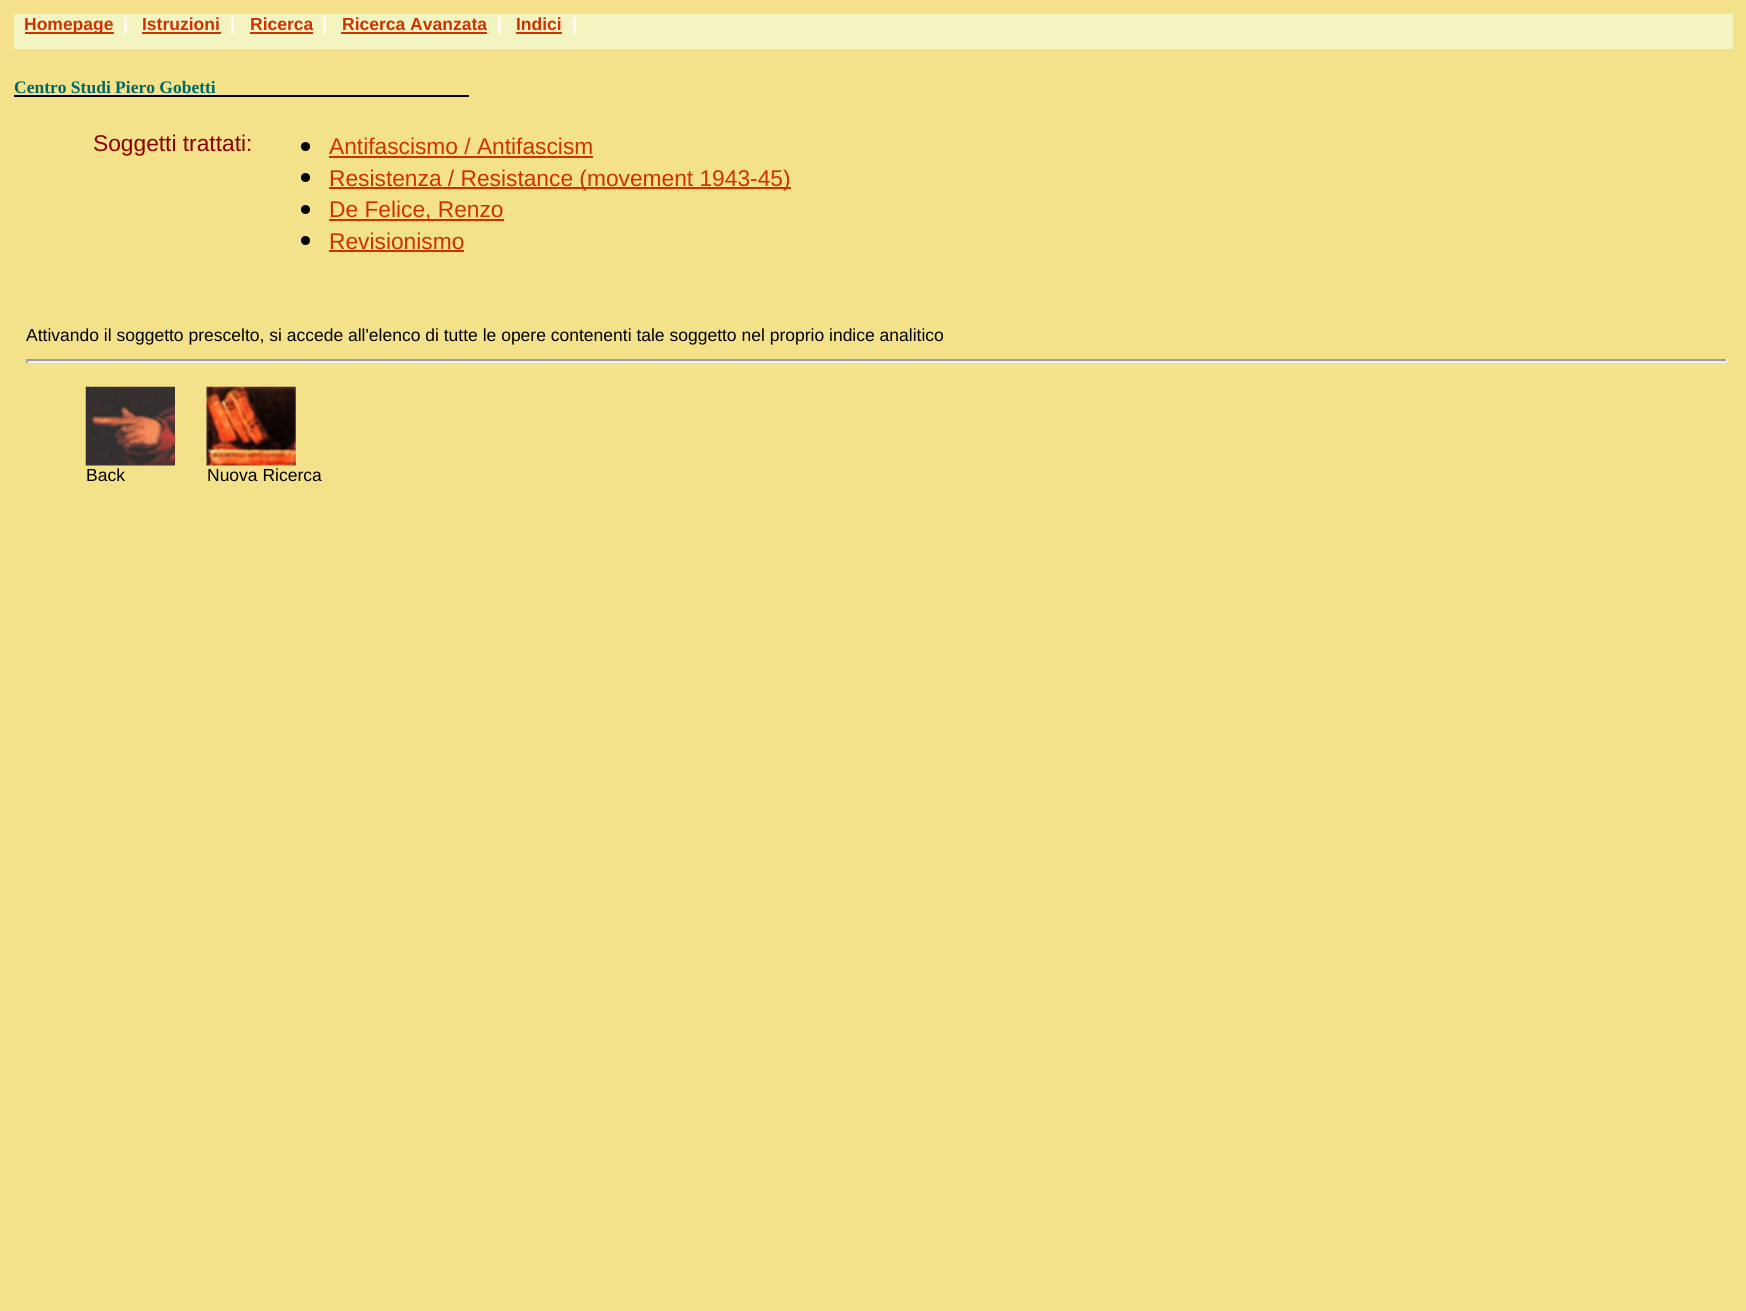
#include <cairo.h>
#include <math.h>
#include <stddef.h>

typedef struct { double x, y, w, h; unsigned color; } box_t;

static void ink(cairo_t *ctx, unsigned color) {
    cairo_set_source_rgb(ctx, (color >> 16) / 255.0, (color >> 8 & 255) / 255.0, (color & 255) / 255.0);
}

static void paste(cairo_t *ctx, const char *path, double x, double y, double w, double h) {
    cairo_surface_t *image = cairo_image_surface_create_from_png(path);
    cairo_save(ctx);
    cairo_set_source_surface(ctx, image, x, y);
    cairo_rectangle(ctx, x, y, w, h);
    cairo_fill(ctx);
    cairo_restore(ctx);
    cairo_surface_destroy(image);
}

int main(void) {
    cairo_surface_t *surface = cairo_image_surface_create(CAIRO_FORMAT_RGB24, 1746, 1311);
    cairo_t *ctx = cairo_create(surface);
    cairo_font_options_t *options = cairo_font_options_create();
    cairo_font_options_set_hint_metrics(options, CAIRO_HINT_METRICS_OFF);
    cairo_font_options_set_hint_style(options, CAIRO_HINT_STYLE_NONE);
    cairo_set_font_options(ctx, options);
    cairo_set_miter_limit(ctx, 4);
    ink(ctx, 0xF3E28A);
    cairo_paint(ctx);
    ink(ctx, 0xF4F4C3);
    cairo_rectangle(ctx, 14, 14, 1719, 35);
    cairo_fill(ctx);
    ink(ctx, 0xCC3300);
    cairo_rectangle(ctx, 25, 32, 89, 2);
    cairo_fill(ctx);
    cairo_select_font_face(ctx, "Liberation Sans", CAIRO_FONT_SLANT_NORMAL, CAIRO_FONT_WEIGHT_BOLD);
    cairo_set_font_size(ctx, 17.5);
    cairo_move_to(ctx, 24, 30);
    cairo_show_text(ctx, "Homepage");
    ink(ctx, 0xFFFFFF);
    cairo_move_to(ctx, 123, 30);
    cairo_show_text(ctx, "|");
    ink(ctx, 0xCC3300);
    cairo_move_to(ctx, 142, 30);
    cairo_show_text(ctx, "Istruzioni");
    cairo_rectangle(ctx, 142, 32, 79, 2);
    cairo_fill(ctx);
    ink(ctx, 0xFFFFFF);
    cairo_move_to(ctx, 230, 30);
    cairo_show_text(ctx, "|");
    ink(ctx, 0xCC3300);
    cairo_move_to(ctx, 250, 30);
    cairo_show_text(ctx, "Ricerca");
    cairo_rectangle(ctx, 250, 32, 63, 2);
    cairo_fill(ctx);
    ink(ctx, 0xFFFFFF);
    cairo_move_to(ctx, 322, 30);
    cairo_show_text(ctx, "|");
    ink(ctx, 0xCC3300);
    cairo_move_to(ctx, 342, 30);
    cairo_show_text(ctx, "Ricerca Avanzata");
    cairo_rectangle(ctx, 341, 32, 146, 2);
    cairo_fill(ctx);
    ink(ctx, 0xFFFFFF);
    cairo_move_to(ctx, 497, 30);
    cairo_show_text(ctx, "|");
    ink(ctx, 0xCC3300);
    cairo_move_to(ctx, 516, 30);
    cairo_show_text(ctx, "Indici");
    cairo_rectangle(ctx, 516, 32, 46, 2);
    cairo_fill(ctx);
    ink(ctx, 0xFFFFFF);
    cairo_move_to(ctx, 572, 30);
    cairo_show_text(ctx, "|");
    cairo_select_font_face(ctx, "Liberation Serif", CAIRO_FONT_SLANT_NORMAL, CAIRO_FONT_WEIGHT_BOLD);
    ink(ctx, 0x006666);
    cairo_move_to(ctx, 14, 93);
    cairo_show_text(ctx, "Centro Studi Piero Gobetti");
    ink(ctx, 0x000000);
    cairo_rectangle(ctx, 14, 95, 455, 2);
    cairo_fill(ctx);
    cairo_select_font_face(ctx, "Liberation Sans", CAIRO_FONT_SLANT_NORMAL, CAIRO_FONT_WEIGHT_NORMAL);
    cairo_set_font_size(ctx, 22.75);
    ink(ctx, 0x8B0000);
    cairo_move_to(ctx, 93, 151);
    cairo_show_text(ctx, "Soggetti trattati:");
    ink(ctx, 0x000000);
    cairo_new_path(ctx);
    cairo_arc(ctx, 305.5, 146.5, 4.5, 0, 2 * M_PI);
    cairo_fill(ctx);
    ink(ctx, 0xCC3300);
    cairo_move_to(ctx, 329, 154);
    cairo_show_text(ctx, "Antifascismo / Antifascism");
    cairo_rectangle(ctx, 329, 156, 264, 2);
    cairo_fill(ctx);
    ink(ctx, 0x000000);
    cairo_arc(ctx, 305.5, 177.5, 4.5, 0, 2 * M_PI);
    cairo_fill(ctx);
    ink(ctx, 0xCC3300);
    cairo_rectangle(ctx, 329, 187, 462, 2);
    cairo_fill(ctx);
    cairo_move_to(ctx, 329, 186);
    cairo_show_text(ctx, "Resistenza / Resistance (movement 1943-45)");
    ink(ctx, 0x000000);
    cairo_new_path(ctx);
    cairo_arc(ctx, 305.5, 209.5, 4.5, 0, 2 * M_PI);
    cairo_fill(ctx);
    ink(ctx, 0xCC3300);
    cairo_rectangle(ctx, 329, 219, 175, 2);
    cairo_fill(ctx);
    cairo_move_to(ctx, 329, 217);
    cairo_show_text(ctx, "De Felice, Renzo");
    ink(ctx, 0x000000);
    cairo_new_path(ctx);
    cairo_arc(ctx, 305.5, 240.5, 4.5, 0, 2 * M_PI);
    cairo_fill(ctx);
    ink(ctx, 0xCC3300);
    cairo_move_to(ctx, 329, 249);
    cairo_show_text(ctx, "Revisionismo");
    cairo_rectangle(ctx, 329, 250, 135, 2);
    cairo_fill(ctx);
    cairo_set_font_size(ctx, 17.5);
    ink(ctx, 0x000000);
    cairo_move_to(ctx, 26, 341);
    cairo_show_text(ctx, "Attivando il soggetto prescelto, si accede all'elenco di tutte le opere contenenti tale soggetto nel proprio indice analitico");
    {
        static const box_t items[] = {
            {26, 359, 1701, 2, 0x9F9F9F},
            {1726, 359, 2, 4, 0xEEEEEE},
            {26, 361, 1701, 2, 0xEEEEEE},
            {26, 359, 2, 4, 0x9F9F9F},
        };
        for (size_t i = 0; i < sizeof items / sizeof *items; i++) {
            ink(ctx, items[i].color);
            cairo_rectangle(ctx, items[i].x, items[i].y, items[i].w, items[i].h);
            cairo_fill(ctx);
        }
    }
    paste(ctx, "media/1.png", 85, 386, 90, 80);
    ink(ctx, 0x000000);
    cairo_move_to(ctx, 86, 481);
    cairo_show_text(ctx, "Back");
    paste(ctx, "media/2.png", 206, 386, 90, 80);
    cairo_move_to(ctx, 207, 481);
    cairo_show_text(ctx, "Nuova Ricerca");
    cairo_surface_write_to_png(surface, "image.png");
    cairo_font_options_destroy(options);
    cairo_destroy(ctx);
    cairo_surface_destroy(surface);
    return 0;
}
